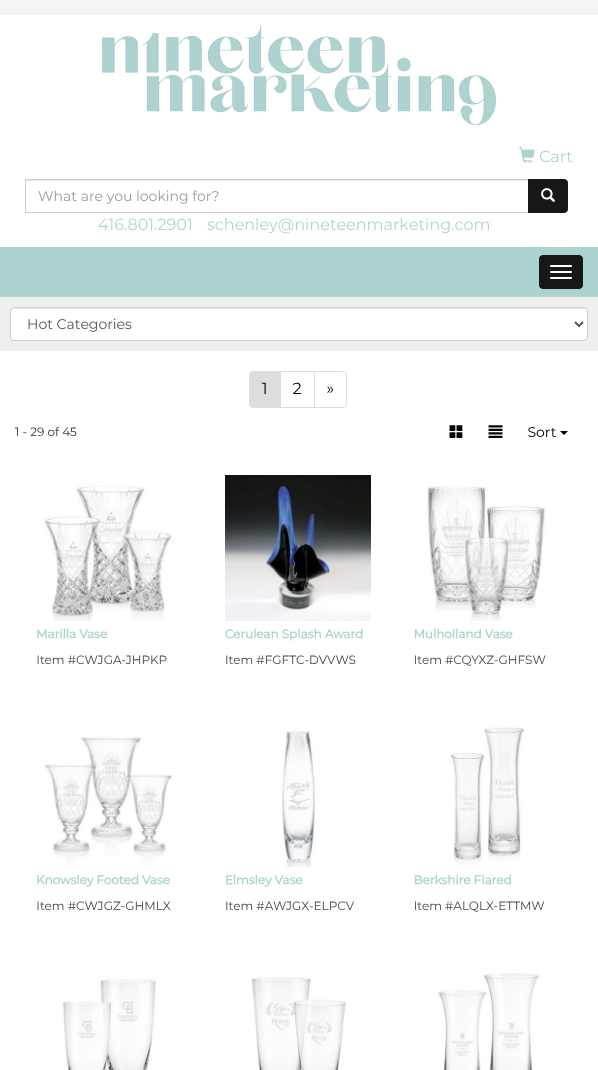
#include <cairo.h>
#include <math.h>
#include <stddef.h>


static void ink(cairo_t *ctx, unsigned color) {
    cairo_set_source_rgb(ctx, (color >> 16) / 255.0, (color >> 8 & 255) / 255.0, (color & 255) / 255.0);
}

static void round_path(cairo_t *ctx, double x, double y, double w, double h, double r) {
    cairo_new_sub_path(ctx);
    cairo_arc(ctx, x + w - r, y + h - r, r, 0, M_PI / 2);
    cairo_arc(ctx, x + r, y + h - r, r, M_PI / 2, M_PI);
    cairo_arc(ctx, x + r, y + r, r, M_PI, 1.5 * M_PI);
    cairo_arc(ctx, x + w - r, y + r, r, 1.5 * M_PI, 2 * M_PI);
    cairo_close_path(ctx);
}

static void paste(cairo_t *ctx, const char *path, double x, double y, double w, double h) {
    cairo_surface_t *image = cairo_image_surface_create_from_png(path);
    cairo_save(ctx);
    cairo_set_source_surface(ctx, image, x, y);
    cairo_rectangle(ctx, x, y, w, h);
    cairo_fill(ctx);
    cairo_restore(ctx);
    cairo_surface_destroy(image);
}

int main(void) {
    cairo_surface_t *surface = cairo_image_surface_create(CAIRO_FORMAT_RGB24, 598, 1070);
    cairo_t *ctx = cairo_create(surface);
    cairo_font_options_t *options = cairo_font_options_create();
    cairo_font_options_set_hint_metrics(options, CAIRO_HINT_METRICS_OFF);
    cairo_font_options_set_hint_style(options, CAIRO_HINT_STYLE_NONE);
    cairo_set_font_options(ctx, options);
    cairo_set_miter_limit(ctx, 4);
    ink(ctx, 0xF4F4F4);
    cairo_paint(ctx);
    ink(ctx, 0xFFFFFF);
    cairo_rectangle(ctx, 0, 15, 598, 232);
    cairo_fill(ctx);
    paste(ctx, "media/1.png", 102, 25, 394, 100);
    paste(ctx, "media/2.png", 519, 147, 16, 16);
    cairo_select_font_face(ctx, "Montserrat Thin", CAIRO_FONT_SLANT_NORMAL, CAIRO_FONT_WEIGHT_NORMAL);
    cairo_set_font_size(ctx, 16);
    ink(ctx, 0xADD3D1);
    cairo_move_to(ctx, 539, 162);
    cairo_show_text(ctx, "Cart");
    ink(ctx, 0xECECEC);
    cairo_rectangle(ctx, 26, 180, 502, 1);
    cairo_fill(ctx);
    cairo_rectangle(ctx, 25.5, 179.5, 503, 33);
    ink(ctx, 0xCCCCCC);
    cairo_set_line_width(ctx, 1);
    cairo_stroke(ctx);
    cairo_set_font_size(ctx, 14);
    ink(ctx, 0x999999);
    cairo_move_to(ctx, 38, 201);
    cairo_show_text(ctx, "What are you looking for?");
    ink(ctx, 0x171717);
    cairo_new_path(ctx);
    cairo_move_to(ctx, 528.5, 179.5);
    cairo_line_to(ctx, 564, 179.5);
    cairo_curve_to(ctx, 566, 179.5, 567.5, 181, 567.5, 183);
    cairo_line_to(ctx, 567.5, 209);
    cairo_curve_to(ctx, 567.5, 211, 566, 212.5, 564, 212.5);
    cairo_line_to(ctx, 528.5, 212.5);
    cairo_close_path(ctx);
    cairo_fill_preserve(ctx);
    cairo_stroke(ctx);
    paste(ctx, "media/3.png", 541, 188, 15, 14);
    cairo_set_font_size(ctx, 16);
    ink(ctx, 0xADD3D1);
    cairo_move_to(ctx, 98, 230);
    cairo_show_text(ctx, "416.801.2901");
    cairo_move_to(ctx, 207, 230);
    cairo_show_text(ctx, "schenley@nineteenmarketing.com");
    cairo_rectangle(ctx, 0, 247, 598, 50);
    cairo_fill(ctx);
    ink(ctx, 0x171717);
    round_path(ctx, 539.5, 255.5, 43, 33, 3.5);
    cairo_fill_preserve(ctx);
    cairo_stroke(ctx);
    ink(ctx, 0xFFFFFF);
    round_path(ctx, 550, 265, 22, 2, 1);
    cairo_fill(ctx);
    round_path(ctx, 550, 271, 22, 2, 1);
    cairo_fill(ctx);
    round_path(ctx, 550, 277, 22, 2, 1);
    cairo_fill(ctx);
    cairo_rectangle(ctx, 0, 351, 598, 719);
    cairo_fill(ctx);
    ink(ctx, 0xEFEFEF);
    cairo_rectangle(ctx, 0, 297, 598, 54);
    cairo_fill(ctx);
    ink(ctx, 0xFFFFFF);
    round_path(ctx, 10, 307, 578, 34, 4);
    cairo_fill(ctx);
    ink(ctx, 0xECECEC);
    cairo_new_path(ctx);
    cairo_move_to(ctx, 14, 309);
    cairo_line_to(ctx, 584, 309);
    cairo_curve_to(ctx, 586, 309, 587, 310, 587, 312);
    cairo_line_to(ctx, 587, 311);
    cairo_curve_to(ctx, 587, 309, 586, 308, 584, 308);
    cairo_line_to(ctx, 14, 308);
    cairo_curve_to(ctx, 12, 308, 11, 309, 11, 311);
    cairo_line_to(ctx, 11, 312);
    cairo_curve_to(ctx, 11, 310, 12, 309, 14, 309);
    cairo_close_path(ctx);
    cairo_fill(ctx);
    round_path(ctx, 10.5, 307.5, 577, 33, 3.5);
    ink(ctx, 0xCCCCCC);
    cairo_stroke(ctx);
    cairo_new_path(ctx);
    cairo_move_to(ctx, 575, 322);
    cairo_line_to(ctx, 579, 326);
    cairo_line_to(ctx, 583, 322);
    ink(ctx, 0x555555);
    cairo_set_line_width(ctx, 2);
    cairo_stroke(ctx);
    cairo_set_font_size(ctx, 14);
    cairo_move_to(ctx, 27, 329);
    cairo_show_text(ctx, "Hot Categories");
    paste(ctx, "media/4.png", 15, 371, 553, 699);
    cairo_surface_write_to_png(surface, "image.png");
    cairo_font_options_destroy(options);
    cairo_destroy(ctx);
    cairo_surface_destroy(surface);
    return 0;
}
